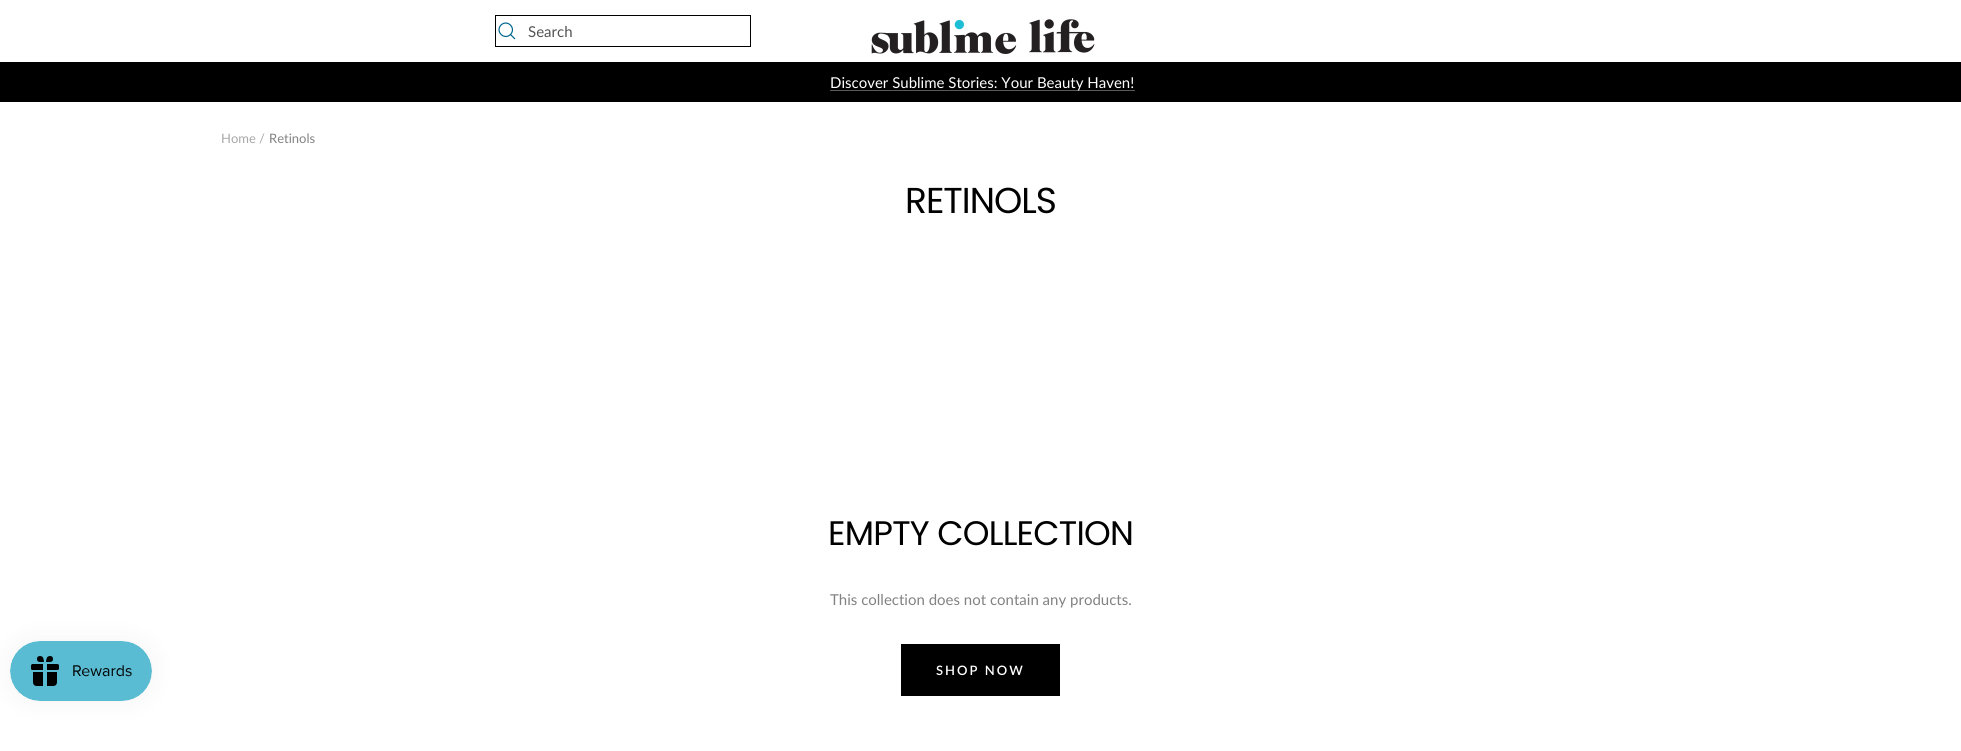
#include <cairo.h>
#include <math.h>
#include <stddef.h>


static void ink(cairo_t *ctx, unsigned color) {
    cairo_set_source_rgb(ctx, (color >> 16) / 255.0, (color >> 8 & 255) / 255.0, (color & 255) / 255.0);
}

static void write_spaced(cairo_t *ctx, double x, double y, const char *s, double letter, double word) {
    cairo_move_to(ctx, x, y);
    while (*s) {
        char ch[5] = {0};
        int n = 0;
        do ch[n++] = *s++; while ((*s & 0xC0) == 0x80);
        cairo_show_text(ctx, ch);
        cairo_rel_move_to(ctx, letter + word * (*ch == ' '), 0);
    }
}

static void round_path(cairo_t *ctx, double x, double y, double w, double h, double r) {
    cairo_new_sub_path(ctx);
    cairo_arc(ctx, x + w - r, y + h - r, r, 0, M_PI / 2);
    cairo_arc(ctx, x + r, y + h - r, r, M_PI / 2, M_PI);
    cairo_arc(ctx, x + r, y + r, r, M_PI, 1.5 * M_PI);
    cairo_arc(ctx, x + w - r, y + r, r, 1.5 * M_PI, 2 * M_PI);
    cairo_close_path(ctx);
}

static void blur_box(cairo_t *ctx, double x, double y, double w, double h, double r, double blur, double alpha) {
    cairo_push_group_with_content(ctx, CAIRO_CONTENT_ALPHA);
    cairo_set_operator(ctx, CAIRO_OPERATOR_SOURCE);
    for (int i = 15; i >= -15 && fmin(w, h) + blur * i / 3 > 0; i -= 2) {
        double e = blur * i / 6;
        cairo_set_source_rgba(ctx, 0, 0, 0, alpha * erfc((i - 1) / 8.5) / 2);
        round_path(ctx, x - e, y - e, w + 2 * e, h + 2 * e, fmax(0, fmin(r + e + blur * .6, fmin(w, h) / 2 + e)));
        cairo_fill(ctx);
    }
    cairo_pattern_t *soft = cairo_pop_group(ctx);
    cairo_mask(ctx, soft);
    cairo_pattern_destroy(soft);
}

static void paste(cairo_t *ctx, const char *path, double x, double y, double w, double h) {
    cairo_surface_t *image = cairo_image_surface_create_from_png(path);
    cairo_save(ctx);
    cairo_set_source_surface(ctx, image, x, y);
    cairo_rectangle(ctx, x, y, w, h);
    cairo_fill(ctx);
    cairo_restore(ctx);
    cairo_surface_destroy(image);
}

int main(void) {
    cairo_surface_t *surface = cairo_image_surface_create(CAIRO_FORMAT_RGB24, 1961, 751);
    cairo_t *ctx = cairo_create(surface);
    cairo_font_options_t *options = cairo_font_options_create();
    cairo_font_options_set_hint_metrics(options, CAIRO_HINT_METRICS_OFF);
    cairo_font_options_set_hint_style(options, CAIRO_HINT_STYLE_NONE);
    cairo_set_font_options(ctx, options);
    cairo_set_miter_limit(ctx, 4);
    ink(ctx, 0xFFFFFF);
    cairo_paint(ctx);
    cairo_rectangle(ctx, 495.5, 15.5, 255, 31);
    ink(ctx, 0x000000);
    cairo_set_line_width(ctx, 1);
    cairo_stroke(ctx);
    cairo_new_path(ctx);
    cairo_move_to(ctx, 510.5, 34.5);
    cairo_curve_to(ctx, 516.5, 28, 507.5, 19, 501, 25);
    cairo_curve_to(ctx, 495, 31.5, 504, 40.5, 510.5, 34.5);
    cairo_close_path(ctx);
    cairo_move_to(ctx, 510.5, 34.5);
    cairo_line_to(ctx, 515, 39);
    ink(ctx, 0x00658C);
    cairo_set_line_width(ctx, 1.2);
    cairo_stroke(ctx);
    cairo_select_font_face(ctx, "Lato", CAIRO_FONT_SLANT_NORMAL, CAIRO_FONT_WEIGHT_NORMAL);
    cairo_set_font_size(ctx, 15);
    ink(ctx, 0x535353);
    cairo_move_to(ctx, 528, 37);
    cairo_show_text(ctx, "Search");
    paste(ctx, "media/1.png", 871, 19, 224, 35);
    ink(ctx, 0x000000);
    cairo_rectangle(ctx, 0, 62, 1961, 40);
    cairo_fill(ctx);
    ink(ctx, 0x595959);
    cairo_rectangle(ctx, 830, 90, 305, 1);
    cairo_fill(ctx);
    ink(ctx, 0xFFFFFF);
    cairo_move_to(ctx, 830, 88);
    cairo_show_text(ctx, "Discover Sublime Stories: Your Beauty Haven!");
    ink(ctx, 0x000000);
    blur_box(ctx, 10, 641, 142, 60, 30, 12.5, 0.05);
    paste(ctx, "media/2.png", 10, 641, 142, 60);
    cairo_set_font_size(ctx, 13);
    ink(ctx, 0xA8A8A8);
    cairo_move_to(ctx, 221, 143);
    cairo_show_text(ctx, "Home");
    cairo_move_to(ctx, 259, 143);
    cairo_show_text(ctx, "/");
    ink(ctx, 0x828282);
    cairo_move_to(ctx, 269, 143);
    cairo_show_text(ctx, "Retinols");
    cairo_select_font_face(ctx, "Poppins", CAIRO_FONT_SLANT_NORMAL, CAIRO_FONT_WEIGHT_NORMAL);
    cairo_set_font_size(ctx, 36);
    ink(ctx, 0x000000);
    write_spaced(ctx, 905, 213, "RETINOLS", -1, 0);
    cairo_set_font_size(ctx, 34);
    write_spaced(ctx, 828, 545, "EMPTY COLLECTION", -0.75, 0);
    cairo_select_font_face(ctx, "Lato", CAIRO_FONT_SLANT_NORMAL, CAIRO_FONT_WEIGHT_NORMAL);
    cairo_set_font_size(ctx, 15);
    ink(ctx, 0x828282);
    cairo_move_to(ctx, 830, 605);
    cairo_show_text(ctx, "This collection does not contain any products.");
    ink(ctx, 0x000000);
    cairo_rectangle(ctx, 901, 644, 159, 52);
    cairo_fill(ctx);
    cairo_select_font_face(ctx, "Lato SemiBold", CAIRO_FONT_SLANT_NORMAL, CAIRO_FONT_WEIGHT_NORMAL);
    cairo_set_font_size(ctx, 13);
    ink(ctx, 0xFFFFFF);
    write_spaced(ctx, 936, 675, "SHOP NOW", 2, 0);
    cairo_surface_write_to_png(surface, "image.png");
    cairo_font_options_destroy(options);
    cairo_destroy(ctx);
    cairo_surface_destroy(surface);
    return 0;
}
